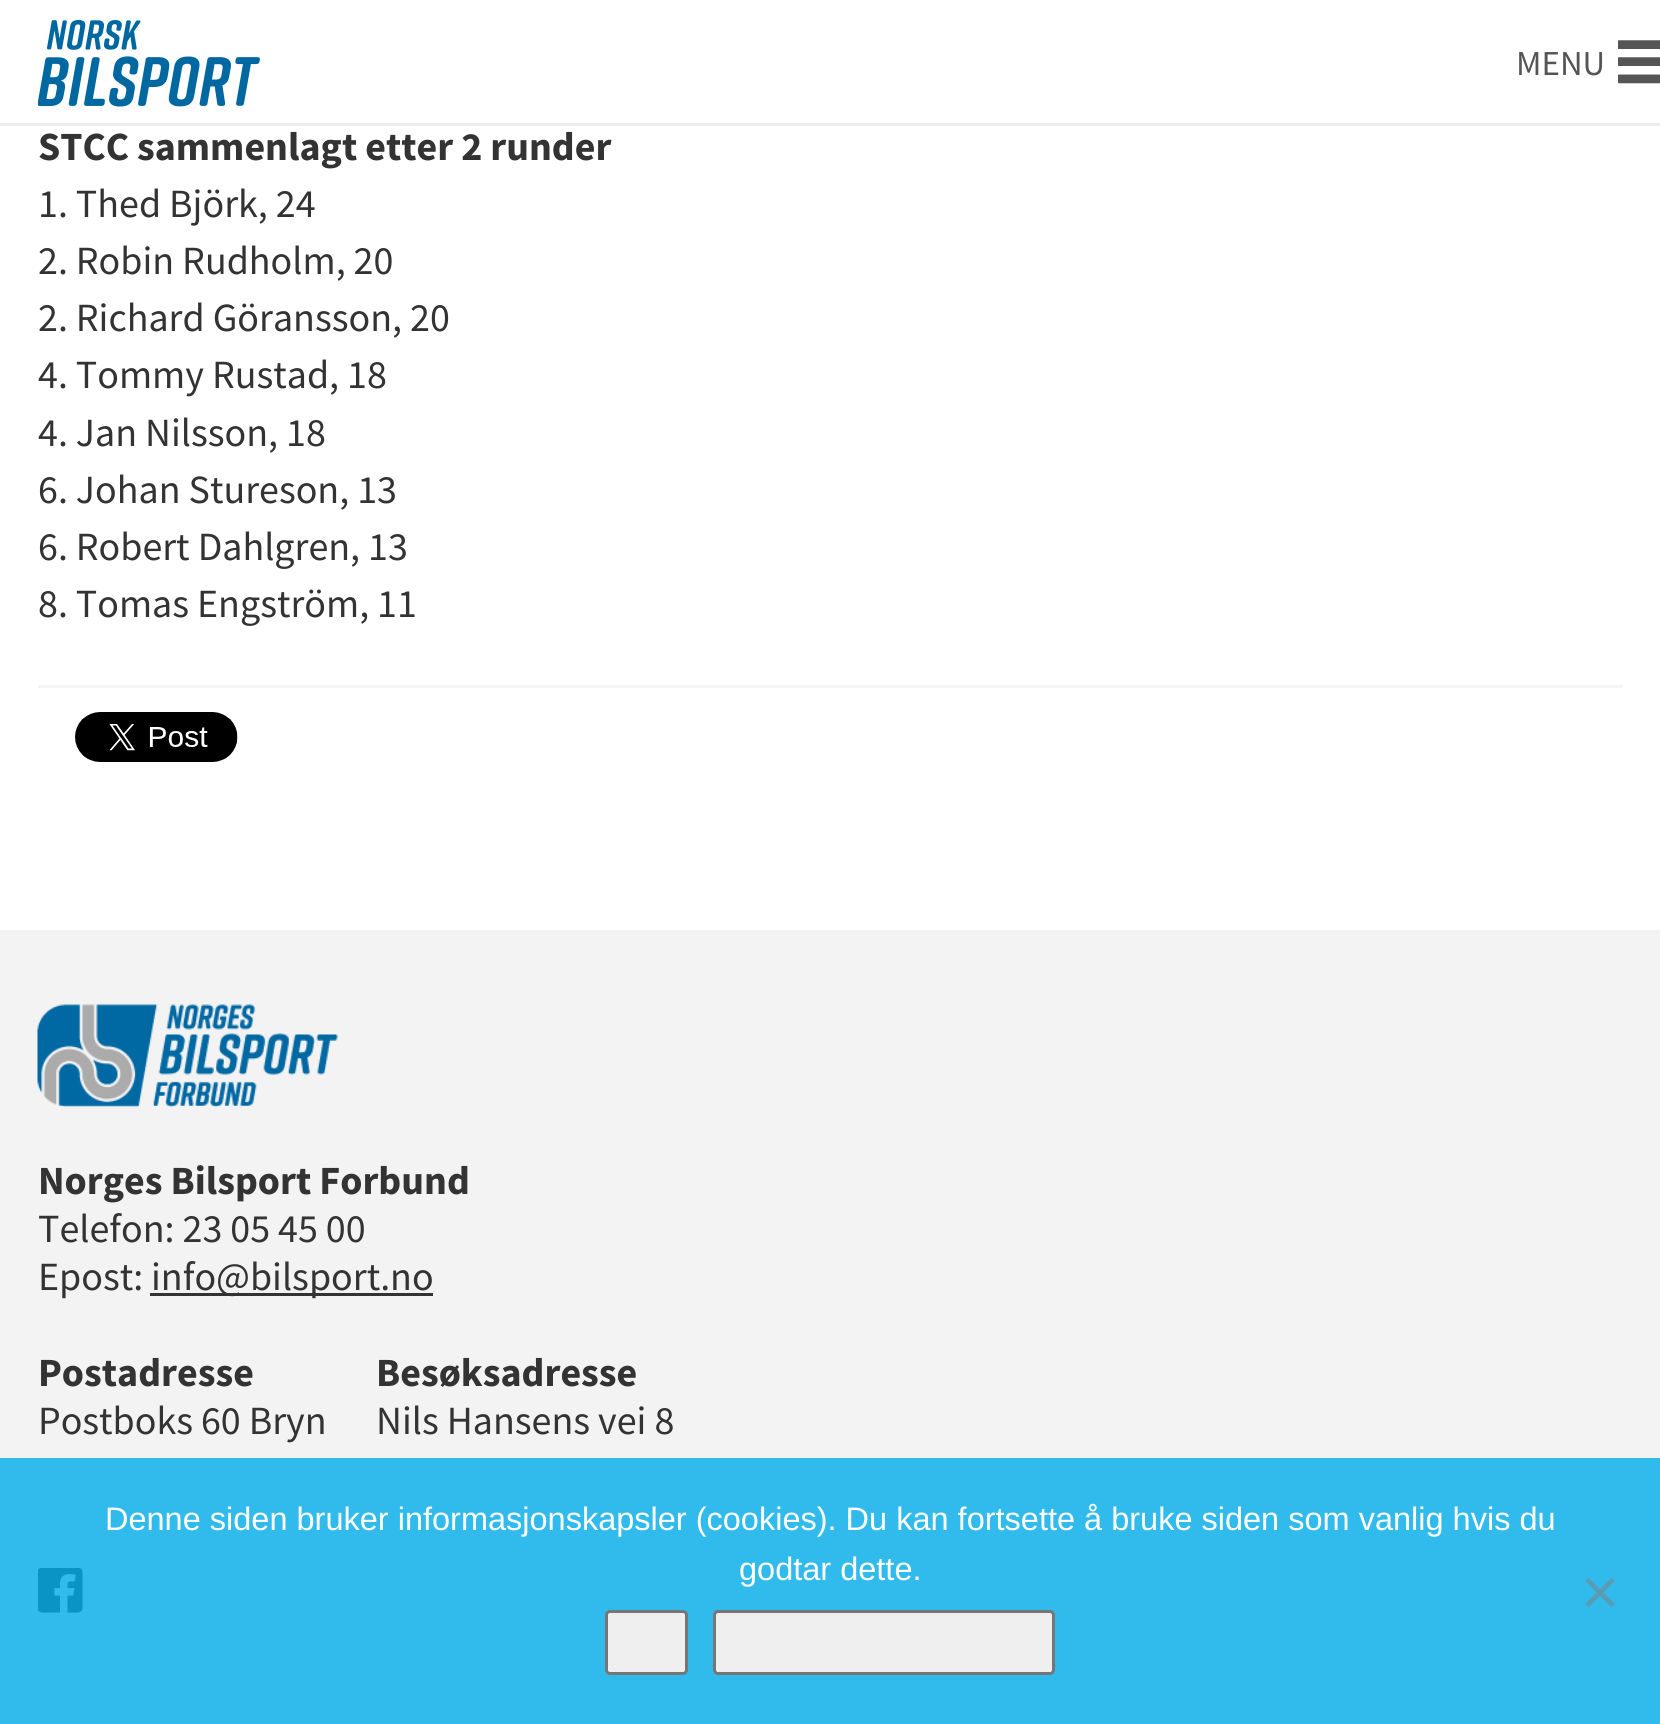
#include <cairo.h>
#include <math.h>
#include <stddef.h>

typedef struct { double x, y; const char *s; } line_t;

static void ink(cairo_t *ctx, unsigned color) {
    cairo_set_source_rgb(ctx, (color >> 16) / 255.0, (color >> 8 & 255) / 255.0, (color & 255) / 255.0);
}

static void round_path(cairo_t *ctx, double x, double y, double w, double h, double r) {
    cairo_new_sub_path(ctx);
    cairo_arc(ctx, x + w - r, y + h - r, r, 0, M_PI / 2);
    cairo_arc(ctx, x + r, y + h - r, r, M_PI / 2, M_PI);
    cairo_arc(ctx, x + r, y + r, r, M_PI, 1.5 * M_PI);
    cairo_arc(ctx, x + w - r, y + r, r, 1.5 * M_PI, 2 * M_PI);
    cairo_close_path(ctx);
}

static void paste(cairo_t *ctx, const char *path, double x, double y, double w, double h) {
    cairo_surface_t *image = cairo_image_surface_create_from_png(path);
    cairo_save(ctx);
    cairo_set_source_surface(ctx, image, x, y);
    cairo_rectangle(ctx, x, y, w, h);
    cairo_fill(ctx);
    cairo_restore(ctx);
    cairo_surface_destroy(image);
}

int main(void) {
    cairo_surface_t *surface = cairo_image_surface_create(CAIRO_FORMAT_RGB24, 1660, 1724);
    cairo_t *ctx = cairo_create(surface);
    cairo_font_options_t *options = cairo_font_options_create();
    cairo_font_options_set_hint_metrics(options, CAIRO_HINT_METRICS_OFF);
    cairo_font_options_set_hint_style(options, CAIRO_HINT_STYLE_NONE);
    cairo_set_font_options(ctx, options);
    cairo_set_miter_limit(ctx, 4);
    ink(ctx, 0xFFFFFF);
    cairo_paint(ctx);
    ink(ctx, 0xEEEEEE);
    cairo_rectangle(ctx, 0, 123, 1660, 3);
    cairo_fill(ctx);
    paste(ctx, "media/1.png", 38, 20, 222, 87);
    cairo_select_font_face(ctx, "Source Sans Pro", CAIRO_FONT_SLANT_NORMAL, CAIRO_FONT_WEIGHT_NORMAL);
    cairo_set_font_size(ctx, 35);
    ink(ctx, 0x555555);
    cairo_move_to(ctx, 1516, 75);
    cairo_show_text(ctx, "MENU");
    paste(ctx, "media/2.png", 1618, 40, 42, 44);
    cairo_select_font_face(ctx, "Source Sans Pro", CAIRO_FONT_SLANT_NORMAL, CAIRO_FONT_WEIGHT_BOLD);
    cairo_set_font_size(ctx, 40);
    ink(ctx, 0x333333);
    cairo_move_to(ctx, 38, 160);
    cairo_show_text(ctx, "STCC sammenlagt etter 2 runder");
    cairo_select_font_face(ctx, "Source Sans Pro", CAIRO_FONT_SLANT_NORMAL, CAIRO_FONT_WEIGHT_NORMAL);
    {
        static const line_t items[] = {
            {38, 217, "1. Thed Björk, 24"},
            {38, 274, "2. Robin Rudholm, 20"},
            {38, 331, "2. Richard Göransson, 20"},
            {38, 388, "4. Tommy Rustad, 18"},
            {38, 446, "4. Jan Nilsson, 18"},
            {38, 503, "6. Johan Stureson, 13"},
            {38, 560, "6. Robert Dahlgren, 13"},
            {38, 617, "8. Tomas Engström, 11"},
        };
        for (size_t i = 0; i < sizeof items / sizeof *items; i++) {
            cairo_move_to(ctx, items[i].x, items[i].y);
            cairo_show_text(ctx, items[i].s);
        }
    }
    ink(ctx, 0xF4F4F4);
    cairo_rectangle(ctx, 38, 685, 1585, 3);
    cairo_fill(ctx);
    paste(ctx, "media/3.png", 75, 712, 163, 50);
    ink(ctx, 0xF3F3F3);
    cairo_rectangle(ctx, 0, 930, 1660, 794);
    cairo_fill(ctx);
    paste(ctx, "media/4.png", 37, 1004, 301, 103);
    cairo_select_font_face(ctx, "Source Sans Pro", CAIRO_FONT_SLANT_NORMAL, CAIRO_FONT_WEIGHT_BOLD);
    ink(ctx, 0x333333);
    cairo_move_to(ctx, 38, 1194);
    cairo_show_text(ctx, "Norges Bilsport Forbund");
    cairo_select_font_face(ctx, "Source Sans Pro", CAIRO_FONT_SLANT_NORMAL, CAIRO_FONT_WEIGHT_NORMAL);
    cairo_move_to(ctx, 38, 1242);
    cairo_show_text(ctx, "Telefon: 23 05 45 00");
    cairo_move_to(ctx, 38, 1290);
    cairo_show_text(ctx, "Epost:");
    cairo_rectangle(ctx, 150, 1293, 283, 3);
    cairo_fill(ctx);
    cairo_move_to(ctx, 151, 1290);
    cairo_show_text(ctx, "info@bilsport.no");
    cairo_select_font_face(ctx, "Source Sans Pro", CAIRO_FONT_SLANT_NORMAL, CAIRO_FONT_WEIGHT_BOLD);
    cairo_move_to(ctx, 38, 1386);
    cairo_show_text(ctx, "Postadresse");
    cairo_select_font_face(ctx, "Source Sans Pro", CAIRO_FONT_SLANT_NORMAL, CAIRO_FONT_WEIGHT_NORMAL);
    cairo_move_to(ctx, 38, 1434);
    cairo_show_text(ctx, "Postboks 60 Bryn");
    cairo_select_font_face(ctx, "Source Sans Pro", CAIRO_FONT_SLANT_NORMAL, CAIRO_FONT_WEIGHT_BOLD);
    cairo_move_to(ctx, 376, 1386);
    cairo_show_text(ctx, "Besøksadresse");
    cairo_select_font_face(ctx, "Source Sans Pro", CAIRO_FONT_SLANT_NORMAL, CAIRO_FONT_WEIGHT_NORMAL);
    cairo_move_to(ctx, 376, 1434);
    cairo_show_text(ctx, "Nils Hansens vei 8");
    paste(ctx, "media/5.png", 38, 1568, 45, 45);
    cairo_set_source_rgba(ctx, 0, 0.675, 0.914, 0.8);
    cairo_rectangle(ctx, 0, 1458, 1660, 266);
    cairo_fill(ctx);
    cairo_select_font_face(ctx, "Liberation Sans", CAIRO_FONT_SLANT_NORMAL, CAIRO_FONT_WEIGHT_NORMAL);
    cairo_set_font_size(ctx, 32.5);
    ink(ctx, 0xFFFFFF);
    cairo_move_to(ctx, 105, 1530);
    cairo_show_text(ctx, "Denne siden bruker informasjonskapsler (cookies). Du kan fortsette å bruke siden som vanlig hvis du");
    cairo_move_to(ctx, 739, 1580);
    cairo_show_text(ctx, "godtar dette.");
    ink(ctx, 0x589DB6);
    cairo_new_path(ctx);
    cairo_move_to(ctx, 1611.5, 1577.5);
    cairo_line_to(ctx, 1615, 1581);
    cairo_line_to(ctx, 1588.5, 1607.5);
    cairo_line_to(ctx, 1585, 1604);
    cairo_close_path(ctx);
    cairo_fill(ctx);
    cairo_new_path(ctx);
    cairo_move_to(ctx, 1585, 1581);
    cairo_line_to(ctx, 1588.5, 1577.5);
    cairo_line_to(ctx, 1615, 1604);
    cairo_line_to(ctx, 1611.5, 1607.5);
    cairo_close_path(ctx);
    cairo_fill(ctx);
    ink(ctx, 0xEFEFEF);
    round_path(ctx, 606.5, 1611.5, 80, 62, 3.5);
    cairo_fill_preserve(ctx);
    ink(ctx, 0x767676);
    cairo_set_line_width(ctx, 3);
    cairo_stroke(ctx);
    ink(ctx, 0xEFEFEF);
    round_path(ctx, 714.5, 1611.5, 339, 62, 3.5);
    cairo_fill_preserve(ctx);
    ink(ctx, 0x767676);
    cairo_stroke(ctx);
    cairo_surface_write_to_png(surface, "image.png");
    cairo_font_options_destroy(options);
    cairo_destroy(ctx);
    cairo_surface_destroy(surface);
    return 0;
}
